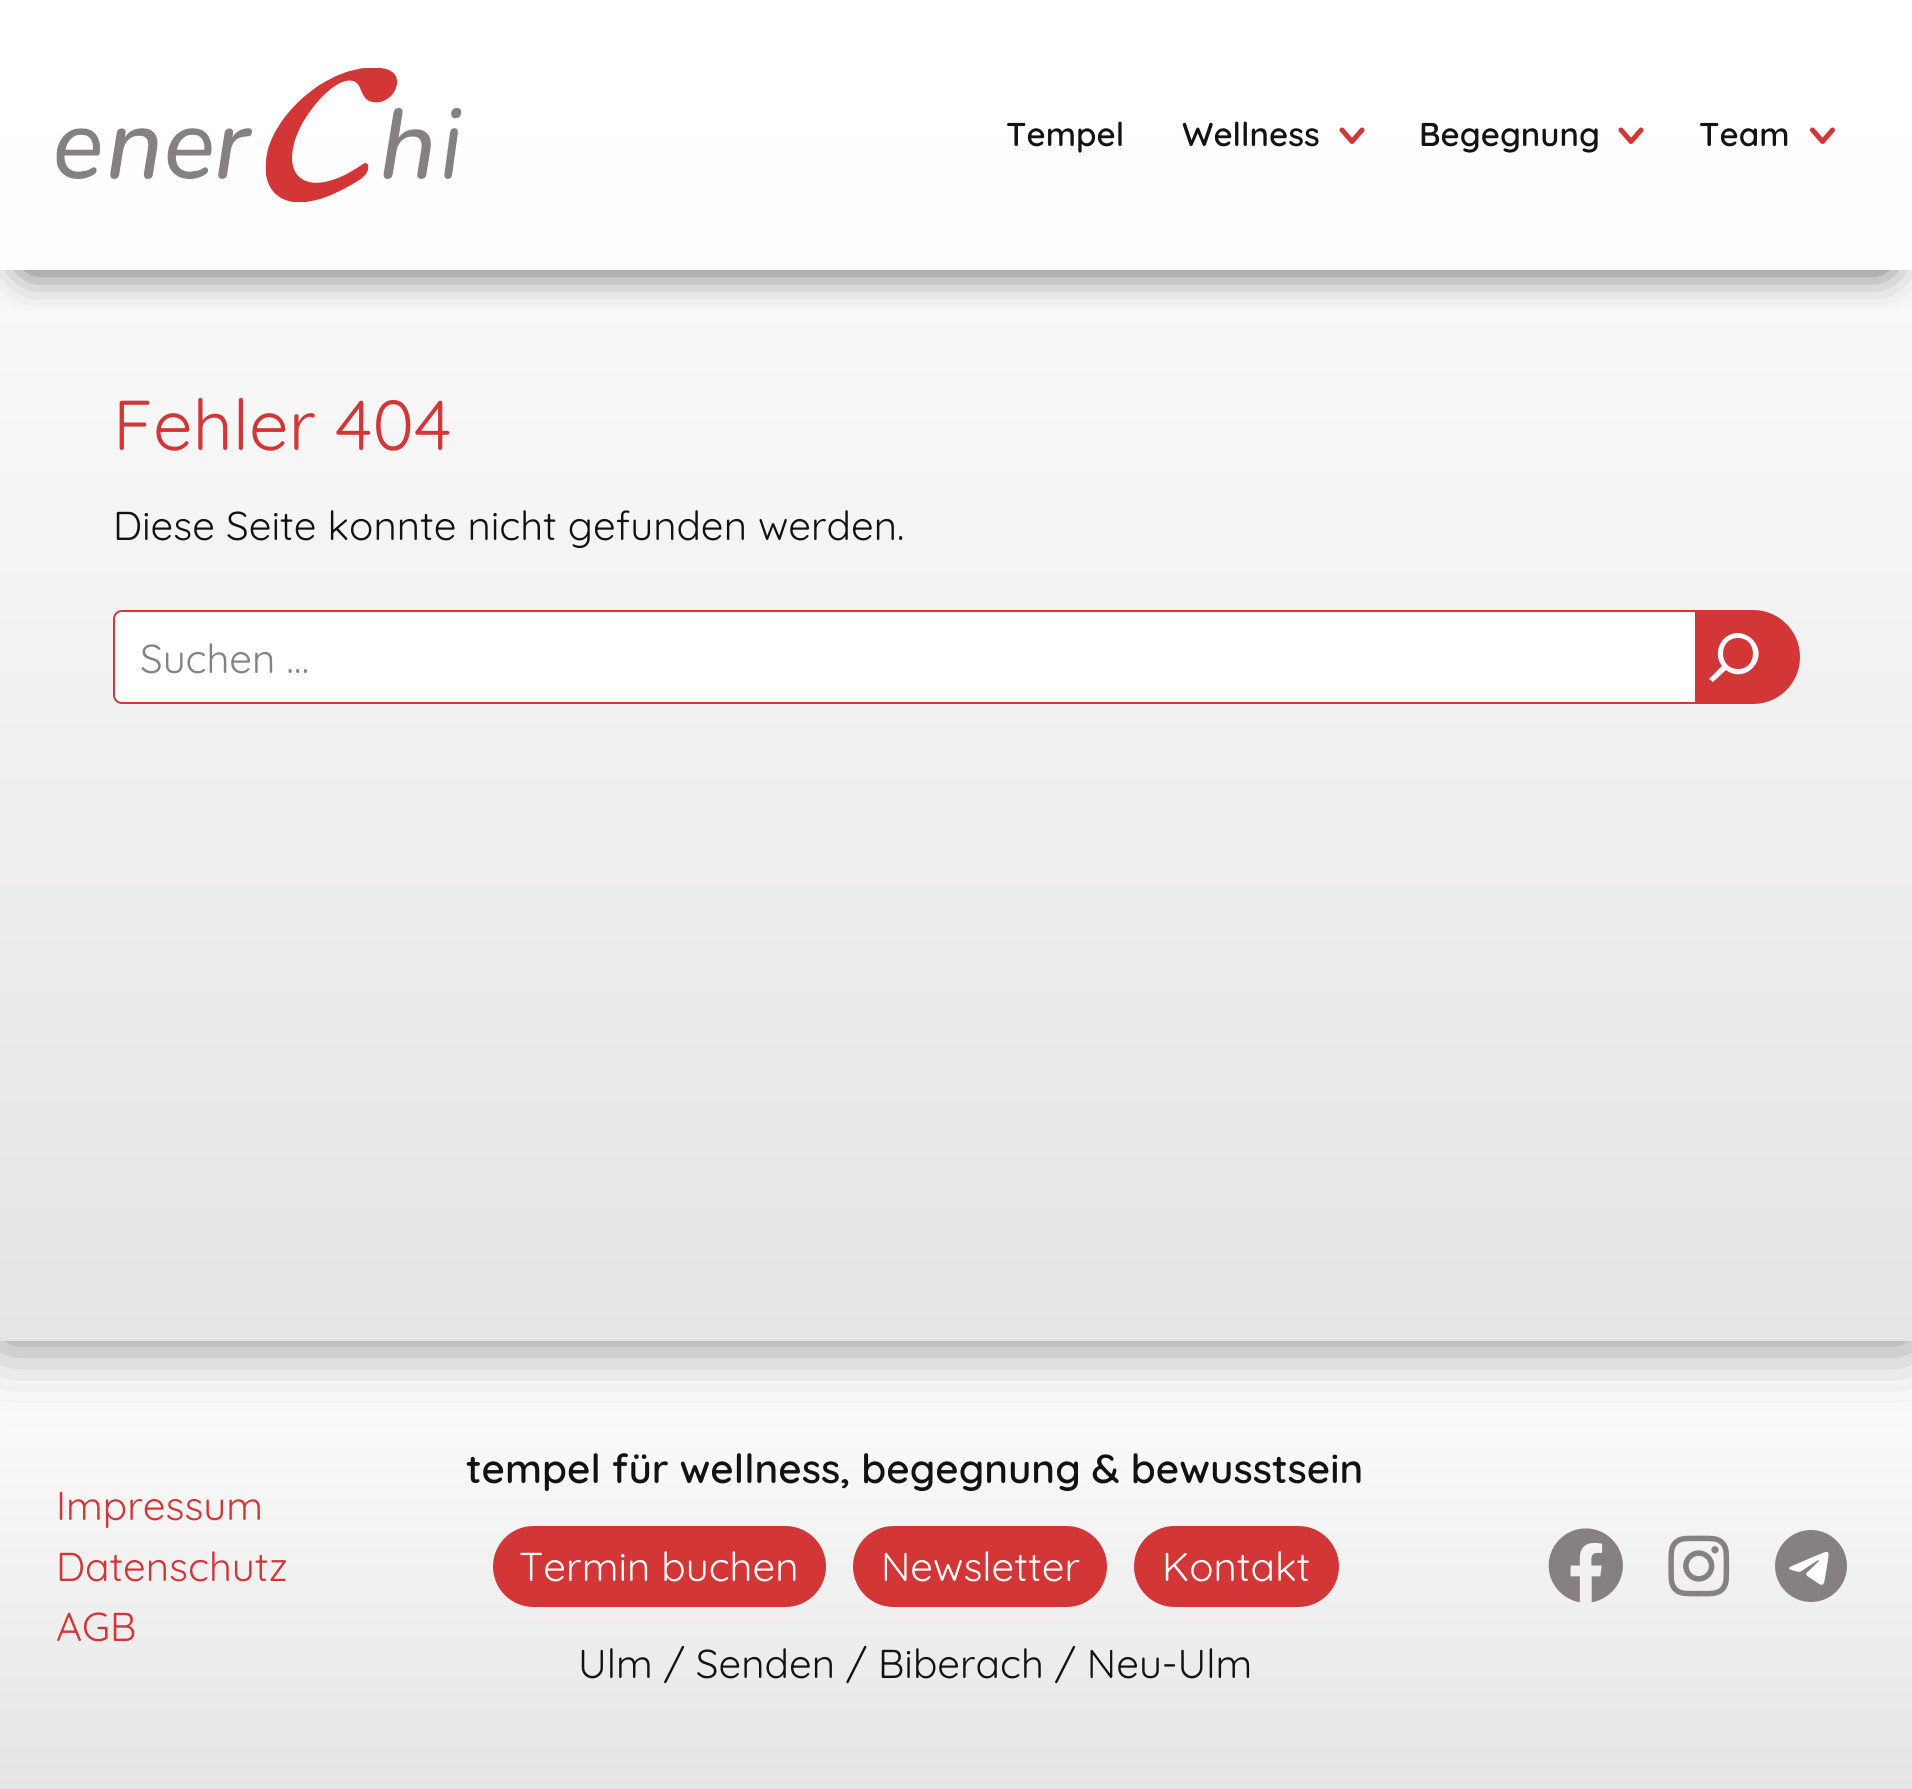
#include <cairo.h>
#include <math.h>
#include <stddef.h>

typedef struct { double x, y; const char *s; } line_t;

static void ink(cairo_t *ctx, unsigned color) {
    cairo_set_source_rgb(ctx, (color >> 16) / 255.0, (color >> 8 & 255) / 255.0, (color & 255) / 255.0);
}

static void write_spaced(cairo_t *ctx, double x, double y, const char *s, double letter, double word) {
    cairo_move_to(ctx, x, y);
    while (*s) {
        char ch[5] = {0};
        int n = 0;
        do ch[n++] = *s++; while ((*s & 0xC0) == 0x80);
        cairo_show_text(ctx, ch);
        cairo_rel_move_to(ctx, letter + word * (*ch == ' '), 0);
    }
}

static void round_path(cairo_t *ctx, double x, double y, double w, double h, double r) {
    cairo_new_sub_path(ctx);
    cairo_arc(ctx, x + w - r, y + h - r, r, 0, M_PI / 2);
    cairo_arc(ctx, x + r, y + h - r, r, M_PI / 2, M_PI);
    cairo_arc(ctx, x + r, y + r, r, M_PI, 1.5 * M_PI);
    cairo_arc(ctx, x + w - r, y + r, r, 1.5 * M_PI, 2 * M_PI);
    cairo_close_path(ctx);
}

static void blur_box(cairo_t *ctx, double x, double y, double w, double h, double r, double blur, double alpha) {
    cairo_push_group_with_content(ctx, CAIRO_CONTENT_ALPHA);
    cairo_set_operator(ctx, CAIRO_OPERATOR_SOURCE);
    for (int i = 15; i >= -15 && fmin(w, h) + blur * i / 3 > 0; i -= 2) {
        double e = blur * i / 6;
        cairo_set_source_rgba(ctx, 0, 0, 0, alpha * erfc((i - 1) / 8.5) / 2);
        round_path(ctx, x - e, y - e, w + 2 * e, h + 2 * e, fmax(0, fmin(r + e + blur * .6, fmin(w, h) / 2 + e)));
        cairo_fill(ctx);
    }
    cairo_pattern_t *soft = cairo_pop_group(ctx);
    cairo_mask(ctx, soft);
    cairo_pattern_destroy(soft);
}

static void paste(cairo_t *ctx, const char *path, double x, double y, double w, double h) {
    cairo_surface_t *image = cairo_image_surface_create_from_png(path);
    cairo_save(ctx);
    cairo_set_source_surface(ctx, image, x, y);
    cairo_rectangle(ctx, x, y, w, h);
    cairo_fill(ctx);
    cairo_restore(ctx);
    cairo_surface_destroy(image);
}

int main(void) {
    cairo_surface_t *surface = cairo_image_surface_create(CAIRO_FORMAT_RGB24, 1912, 1789);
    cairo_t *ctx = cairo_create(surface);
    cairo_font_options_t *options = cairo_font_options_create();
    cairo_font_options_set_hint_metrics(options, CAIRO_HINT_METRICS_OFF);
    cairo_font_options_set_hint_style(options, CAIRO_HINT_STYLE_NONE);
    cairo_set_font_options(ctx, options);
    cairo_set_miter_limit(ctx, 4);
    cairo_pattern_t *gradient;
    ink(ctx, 0xFFFFFF);
    cairo_paint(ctx);
    gradient = cairo_pattern_create_linear(956, 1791, 956, 1341);
    cairo_pattern_add_color_stop_rgba(gradient, 0, 0.902, 0.894, 0.894, 1);
    cairo_pattern_add_color_stop_rgba(gradient, 1, 1, 1, 1, 1);
    cairo_set_source(ctx, gradient);
    cairo_pattern_destroy(gradient);
    cairo_rectangle(ctx, 0, 1383, 1912, 406);
    cairo_fill(ctx);
    ink(ctx, 0x000000);
    blur_box(ctx, 0, 0, 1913, 1341, 0, 34, 0.5);
    gradient = cairo_pattern_create_linear(956, 0, 956, 1341);
    cairo_pattern_add_color_stop_rgba(gradient, 0, 1, 1, 1, 1);
    cairo_pattern_add_color_stop_rgba(gradient, 1, 0.902, 0.894, 0.894, 1);
    cairo_set_source(ctx, gradient);
    cairo_pattern_destroy(gradient);
    cairo_rectangle(ctx, 0, 270, 1912, 1071);
    cairo_fill(ctx);
    gradient = cairo_pattern_create_linear(956, 0, 956, 1341);
    cairo_pattern_add_color_stop_rgba(gradient, 0, 1, 1, 1, 1);
    cairo_pattern_add_color_stop_rgba(gradient, 1, 0.98, 0.98, 0.98, 1);
    cairo_set_source(ctx, gradient);
    cairo_pattern_destroy(gradient);
    cairo_rectangle(ctx, 0, 0, 1912, 270);
    cairo_fill(ctx);
    cairo_save(ctx);
    cairo_rectangle(ctx, 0, 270, 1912, 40);
    cairo_clip(ctx);
    ink(ctx, 0x000000);
    blur_box(ctx, 27, 50, 1859, 216, 0, 22.5, 0.8);
    cairo_restore(ctx);
    paste(ctx, "media/1.png", 56, 68, 405, 135);
    cairo_select_font_face(ctx, "Quicksand SemiBold", CAIRO_FONT_SLANT_NORMAL, CAIRO_FONT_WEIGHT_NORMAL);
    cairo_set_font_size(ctx, 33);
    ink(ctx, 0x141111);
    cairo_move_to(ctx, 1006, 146);
    cairo_show_text(ctx, "Tempel");
    cairo_move_to(ctx, 1182, 146);
    cairo_show_text(ctx, "Wellness");
    cairo_new_path(ctx);
    cairo_move_to(ctx, 1342, 130);
    cairo_line_to(ctx, 1352, 141.5);
    cairo_move_to(ctx, 1352, 141.5);
    cairo_line_to(ctx, 1362, 130);
    ink(ctx, 0xD23636);
    cairo_set_line_width(ctx, 5);
    cairo_set_line_cap(ctx, CAIRO_LINE_CAP_ROUND);
    cairo_set_line_join(ctx, CAIRO_LINE_JOIN_ROUND);
    cairo_stroke(ctx);
    ink(ctx, 0x141111);
    cairo_move_to(ctx, 1419, 146);
    cairo_show_text(ctx, "Begegnung");
    cairo_new_path(ctx);
    cairo_move_to(ctx, 1621, 130);
    cairo_line_to(ctx, 1631, 141.5);
    cairo_move_to(ctx, 1631, 141.5);
    cairo_line_to(ctx, 1641, 130);
    ink(ctx, 0xD23636);
    cairo_stroke(ctx);
    ink(ctx, 0x141111);
    cairo_move_to(ctx, 1699, 146);
    cairo_show_text(ctx, "Team");
    cairo_new_path(ctx);
    cairo_move_to(ctx, 1812.5, 130);
    cairo_line_to(ctx, 1822.5, 141.5);
    cairo_move_to(ctx, 1822.5, 141.5);
    cairo_line_to(ctx, 1832.5, 130);
    ink(ctx, 0xD23636);
    cairo_stroke(ctx);
    cairo_select_font_face(ctx, "Quicksand Light", CAIRO_FONT_SLANT_NORMAL, CAIRO_FONT_WEIGHT_NORMAL);
    cairo_set_font_size(ctx, 70.5);
    cairo_move_to(ctx, 113, 450);
    cairo_show_text(ctx, "Fehler 404");
    cairo_set_font_size(ctx, 40.3);
    ink(ctx, 0x141111);
    cairo_move_to(ctx, 113, 540);
    cairo_show_text(ctx, "Diese Seite konnte nicht gefunden werden.");
    ink(ctx, 0xFFFFFF);
    cairo_new_path(ctx);
    cairo_move_to(ctx, 122, 611);
    cairo_line_to(ctx, 1696, 611);
    cairo_line_to(ctx, 1696, 703);
    cairo_line_to(ctx, 122, 703);
    cairo_curve_to(ctx, 117.5, 703, 114, 699.5, 114, 695);
    cairo_line_to(ctx, 114, 619);
    cairo_curve_to(ctx, 114, 614.5, 117.5, 611, 122, 611);
    cairo_close_path(ctx);
    cairo_fill_preserve(ctx);
    ink(ctx, 0xD23636);
    cairo_set_line_width(ctx, 2);
    cairo_set_line_cap(ctx, CAIRO_LINE_CAP_BUTT);
    cairo_set_line_join(ctx, CAIRO_LINE_JOIN_MITER);
    cairo_stroke(ctx);
    ink(ctx, 0x878080);
    cairo_move_to(ctx, 140, 673);
    cairo_show_text(ctx, "Suchen …");
    ink(ctx, 0xD23636);
    cairo_new_path(ctx);
    cairo_move_to(ctx, 1697, 610);
    cairo_line_to(ctx, 1753, 610);
    cairo_curve_to(ctx, 1779, 610, 1800, 631, 1800, 657);
    cairo_curve_to(ctx, 1800, 683, 1779, 704, 1753, 704);
    cairo_line_to(ctx, 1697, 704);
    cairo_close_path(ctx);
    cairo_fill(ctx);
    ink(ctx, 0xFFFFFF);
    cairo_new_path(ctx);
    cairo_move_to(ctx, 1738, 633);
    cairo_curve_to(ctx, 1721, 633, 1712, 653, 1722, 666);
    cairo_line_to(ctx, 1709, 679);
    cairo_line_to(ctx, 1713, 682);
    cairo_line_to(ctx, 1726, 670);
    cairo_curve_to(ctx, 1745, 685, 1771, 658, 1752, 639);
    cairo_curve_to(ctx, 1749, 636, 1743, 633, 1738, 633);
    cairo_close_path(ctx);
    cairo_move_to(ctx, 1738, 669);
    cairo_curve_to(ctx, 1718, 669, 1718, 638, 1738, 638);
    cairo_curve_to(ctx, 1758, 638, 1758, 669, 1738, 669);
    cairo_close_path(ctx);
    cairo_fill(ctx);
    ink(ctx, 0xD23636);
    {
        static const line_t items[] = {
            {56, 1520, "Impressum"},
            {56, 1581, "Datenschutz"},
            {56, 1641, "AGB"},
        };
        for (size_t i = 0; i < sizeof items / sizeof *items; i++) {
            cairo_move_to(ctx, items[i].x, items[i].y);
            cairo_show_text(ctx, items[i].s);
        }
    }
    cairo_select_font_face(ctx, "Quicksand SemiBold", CAIRO_FONT_SLANT_NORMAL, CAIRO_FONT_WEIGHT_NORMAL);
    ink(ctx, 0x141111);
    write_spaced(ctx, 466, 1483, "tempel für wellness, begegnung & bewusstsein", 0, -0.25);
    ink(ctx, 0xD23636);
    round_path(ctx, 494, 1527, 331, 79, 39.5);
    cairo_fill_preserve(ctx);
    cairo_stroke(ctx);
    cairo_select_font_face(ctx, "Quicksand Light", CAIRO_FONT_SLANT_NORMAL, CAIRO_FONT_WEIGHT_NORMAL);
    ink(ctx, 0xFFFFFF);
    cairo_move_to(ctx, 519, 1581);
    cairo_show_text(ctx, "Termin buchen");
    ink(ctx, 0xD23636);
    round_path(ctx, 854, 1527, 252, 79, 39.5);
    cairo_fill_preserve(ctx);
    cairo_stroke(ctx);
    ink(ctx, 0xFFFFFF);
    cairo_move_to(ctx, 881, 1581);
    cairo_show_text(ctx, "Newsletter");
    ink(ctx, 0xD23636);
    round_path(ctx, 1135, 1527, 203, 79, 39.5);
    cairo_fill_preserve(ctx);
    cairo_stroke(ctx);
    ink(ctx, 0xFFFFFF);
    cairo_move_to(ctx, 1162, 1581);
    cairo_show_text(ctx, "Kontakt");
    ink(ctx, 0x141111);
    cairo_move_to(ctx, 578, 1678);
    cairo_show_text(ctx, "Ulm / Senden / Biberach / Neu-Ulm");
    paste(ctx, "media/2.png", 1548, 1528, 75, 75);
    paste(ctx, "media/3.png", 1668, 1535, 62, 62);
    ink(ctx, 0x878080);
    cairo_arc(ctx, 1811, 1566, 36, 0, 2 * M_PI);
    cairo_fill(ctx);
    paste(ctx, "media/4.png", 1789, 1552, 40, 33);
    cairo_surface_write_to_png(surface, "image.png");
    cairo_font_options_destroy(options);
    cairo_destroy(ctx);
    cairo_surface_destroy(surface);
    return 0;
}
